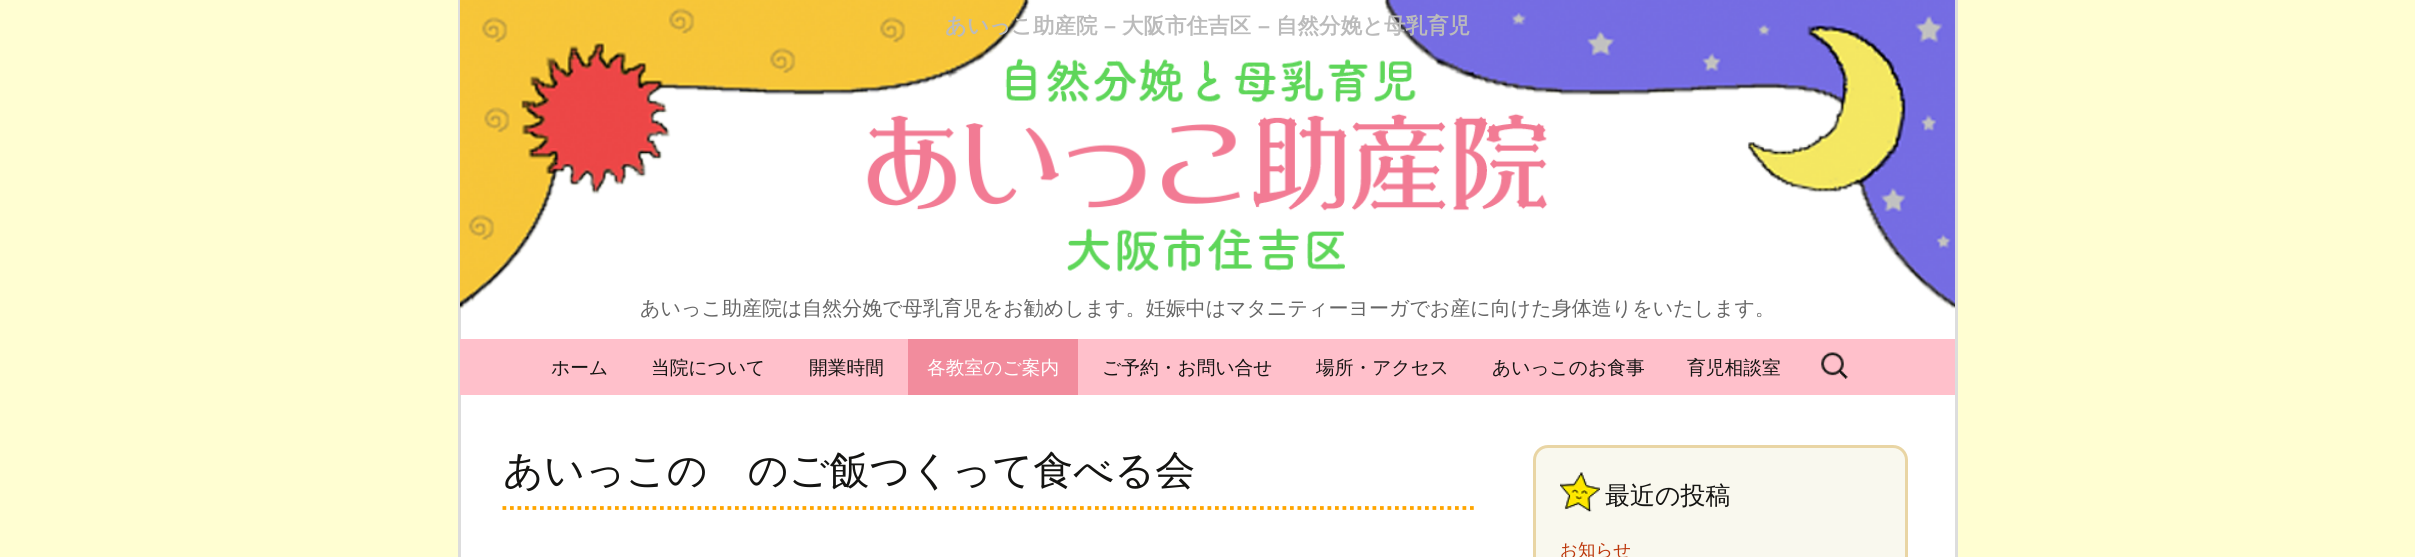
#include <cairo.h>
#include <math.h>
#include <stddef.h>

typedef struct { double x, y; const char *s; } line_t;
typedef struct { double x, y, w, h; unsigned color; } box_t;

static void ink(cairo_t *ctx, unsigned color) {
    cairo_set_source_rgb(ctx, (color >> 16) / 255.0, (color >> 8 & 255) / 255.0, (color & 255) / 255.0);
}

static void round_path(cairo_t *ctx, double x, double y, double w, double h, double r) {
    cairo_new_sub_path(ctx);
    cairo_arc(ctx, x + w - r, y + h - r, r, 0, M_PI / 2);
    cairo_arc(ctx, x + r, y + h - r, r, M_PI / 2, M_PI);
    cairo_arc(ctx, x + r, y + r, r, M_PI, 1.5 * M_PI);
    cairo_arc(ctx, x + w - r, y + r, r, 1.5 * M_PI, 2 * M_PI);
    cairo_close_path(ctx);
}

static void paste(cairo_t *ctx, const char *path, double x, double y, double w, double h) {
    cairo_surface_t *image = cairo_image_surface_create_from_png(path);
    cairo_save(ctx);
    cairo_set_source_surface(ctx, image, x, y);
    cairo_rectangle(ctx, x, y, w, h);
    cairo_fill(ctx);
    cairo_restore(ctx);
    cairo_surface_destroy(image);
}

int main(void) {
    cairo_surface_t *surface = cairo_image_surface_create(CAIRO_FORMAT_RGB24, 2415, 557);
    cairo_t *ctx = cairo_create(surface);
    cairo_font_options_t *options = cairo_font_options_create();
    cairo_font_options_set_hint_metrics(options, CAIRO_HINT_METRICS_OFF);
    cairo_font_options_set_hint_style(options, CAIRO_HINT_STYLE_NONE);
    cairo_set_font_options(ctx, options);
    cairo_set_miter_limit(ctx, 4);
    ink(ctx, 0xFFFED2);
    cairo_paint(ctx);
    {
        static const box_t items[] = {
            {461, 0, 1494, 557, 0xFFFFFF},
            {1955, 0, 3, 557, 0xDDDDDD},
            {458, 0, 3, 557, 0xDDDDDD},
        };
        for (size_t i = 0; i < sizeof items / sizeof *items; i++) {
            ink(ctx, items[i].color);
            cairo_rectangle(ctx, items[i].x, items[i].y, items[i].w, items[i].h);
            cairo_fill(ctx);
        }
    }
    paste(ctx, "media/1.png", 460, 0, 1495, 309);
    cairo_select_font_face(ctx, "WenQuanYi Zen Hei", CAIRO_FONT_SLANT_NORMAL, CAIRO_FONT_WEIGHT_BOLD);
    cairo_set_font_size(ctx, 21.5);
    ink(ctx, 0xBBBBBB);
    cairo_move_to(ctx, 945, 33);
    cairo_show_text(ctx, "あいっこ助産院");
    cairo_select_font_face(ctx, "Liberation Sans", CAIRO_FONT_SLANT_NORMAL, CAIRO_FONT_WEIGHT_BOLD);
    cairo_move_to(ctx, 1104, 33);
    cairo_show_text(ctx, "–");
    cairo_select_font_face(ctx, "WenQuanYi Zen Hei", CAIRO_FONT_SLANT_NORMAL, CAIRO_FONT_WEIGHT_BOLD);
    cairo_move_to(ctx, 1122, 33);
    cairo_show_text(ctx, "大阪市住吉区");
    cairo_select_font_face(ctx, "Liberation Sans", CAIRO_FONT_SLANT_NORMAL, CAIRO_FONT_WEIGHT_BOLD);
    cairo_move_to(ctx, 1258, 33);
    cairo_show_text(ctx, "–");
    cairo_select_font_face(ctx, "WenQuanYi Zen Hei", CAIRO_FONT_SLANT_NORMAL, CAIRO_FONT_WEIGHT_BOLD);
    cairo_move_to(ctx, 1276, 33);
    cairo_show_text(ctx, "自然分娩と母乳育児");
    paste(ctx, "media/2.png", 867, 58, 681, 214);
    cairo_select_font_face(ctx, "WenQuanYi Zen Hei Medium", CAIRO_FONT_SLANT_NORMAL, CAIRO_FONT_WEIGHT_NORMAL);
    cairo_set_font_size(ctx, 20);
    ink(ctx, 0x666666);
    cairo_move_to(ctx, 640, 315);
    cairo_show_text(ctx, "あいっこ助産院は自然分娩で母乳育児をお勧めします。妊娠中はマタニティーヨーガでお産に向けた身体造りをいたします。");
    ink(ctx, 0xFFC0CB);
    cairo_rectangle(ctx, 460, 339, 1495, 56);
    cairo_fill(ctx);
    cairo_set_font_size(ctx, 18.75);
    ink(ctx, 0x141412);
    {
        static const line_t items[] = {
            {551, 374, "ホーム"},
            {651, 374, "当院について"},
            {809, 374, "開業時間"},
        };
        for (size_t i = 0; i < sizeof items / sizeof *items; i++) {
            cairo_move_to(ctx, items[i].x, items[i].y);
            cairo_show_text(ctx, items[i].s);
        }
    }
    ink(ctx, 0xF28C9D);
    cairo_rectangle(ctx, 908, 339, 170, 56);
    cairo_fill(ctx);
    ink(ctx, 0xFFFFFF);
    cairo_move_to(ctx, 927, 374);
    cairo_show_text(ctx, "各教室のご案内");
    ink(ctx, 0x141412);
    {
        static const line_t items[] = {
            {1102, 374, "ご予約・お問い合せ"},
            {1316, 374, "場所・アクセス"},
            {1492, 374, "あいっこのお食事"},
            {1687, 374, "育児相談室"},
        };
        for (size_t i = 0; i < sizeof items / sizeof *items; i++) {
            cairo_move_to(ctx, items[i].x, items[i].y);
            cairo_show_text(ctx, items[i].s);
        }
    }
    paste(ctx, "media/3.png", 1821, 352, 27, 27);
    cairo_new_path(ctx);
    cairo_move_to(ctx, 502.5, 508);
    cairo_line_to(ctx, 1477.5, 508);
    ink(ctx, 0xFFA500);
    cairo_set_line_width(ctx, 3.8);
    cairo_set_dash(ctx, (double[]){3.75, 3.75}, 2, 0);
    cairo_stroke(ctx);
    cairo_set_font_size(ctx, 40);
    ink(ctx, 0x141412);
    cairo_move_to(ctx, 503, 484);
    cairo_show_text(ctx, "あいっこの　のご飯つくって食べる会");
    ink(ctx, 0xF9F8EE);
    round_path(ctx, 1534.5, 446.5, 372, 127, 13.5);
    cairo_fill_preserve(ctx);
    ink(ctx, 0xE9D5A4);
    cairo_set_line_width(ctx, 3);
    cairo_set_dash(ctx, NULL, 0, 0);
    cairo_stroke(ctx);
    paste(ctx, "media/4.png", 1560, 472, 40, 40);
    cairo_set_font_size(ctx, 25);
    ink(ctx, 0x141412);
    cairo_move_to(ctx, 1605, 504);
    cairo_show_text(ctx, "最近の投稿");
    cairo_set_font_size(ctx, 17.5);
    ink(ctx, 0xBC360A);
    cairo_move_to(ctx, 1560, 556);
    cairo_show_text(ctx, "お知らせ");
    cairo_surface_write_to_png(surface, "image.png");
    cairo_font_options_destroy(options);
    cairo_destroy(ctx);
    cairo_surface_destroy(surface);
    return 0;
}
